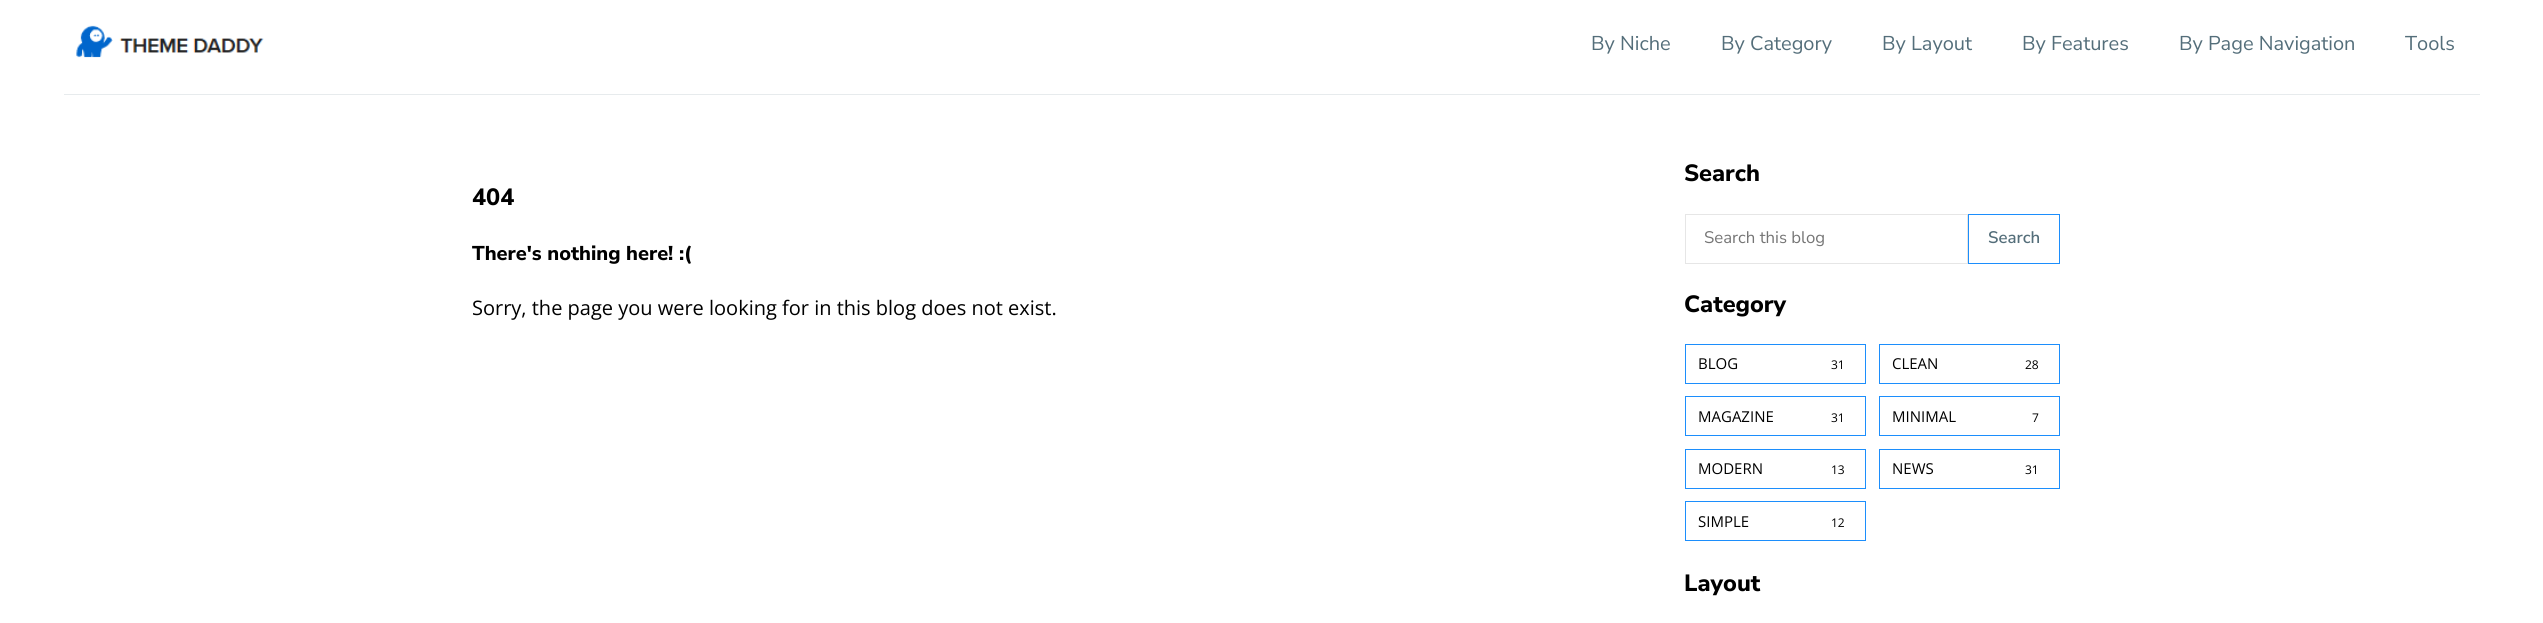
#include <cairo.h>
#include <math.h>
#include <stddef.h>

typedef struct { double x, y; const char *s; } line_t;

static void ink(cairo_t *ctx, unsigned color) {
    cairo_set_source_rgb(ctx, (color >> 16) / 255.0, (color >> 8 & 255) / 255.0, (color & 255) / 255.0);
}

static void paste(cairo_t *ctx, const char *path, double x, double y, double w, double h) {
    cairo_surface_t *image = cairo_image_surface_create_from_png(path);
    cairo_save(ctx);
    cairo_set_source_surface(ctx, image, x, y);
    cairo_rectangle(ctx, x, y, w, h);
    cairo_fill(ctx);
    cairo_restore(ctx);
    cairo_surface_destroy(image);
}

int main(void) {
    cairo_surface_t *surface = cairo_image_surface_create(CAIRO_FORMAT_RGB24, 2543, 623);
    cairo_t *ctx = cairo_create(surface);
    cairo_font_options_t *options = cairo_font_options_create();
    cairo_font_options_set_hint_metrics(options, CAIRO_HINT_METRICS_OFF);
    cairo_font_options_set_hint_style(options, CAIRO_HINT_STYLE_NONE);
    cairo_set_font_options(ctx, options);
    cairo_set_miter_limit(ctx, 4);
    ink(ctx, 0xFFFFFF);
    cairo_paint(ctx);
    ink(ctx, 0xE7EBED);
    cairo_rectangle(ctx, 64, 94, 2416, 1);
    cairo_fill(ctx);
    paste(ctx, "media/1.png", 76, 25, 188, 33);
    cairo_select_font_face(ctx, "Nunito Sans", CAIRO_FONT_SLANT_NORMAL, CAIRO_FONT_WEIGHT_NORMAL);
    cairo_set_font_size(ctx, 20);
    ink(ctx, 0x546E7A);
    {
        static const line_t items[] = {
            {1591, 50, "By Niche"},
            {1721, 50, "By Category"},
            {1882, 50, "By Layout"},
            {2022, 50, "By Features"},
            {2179, 50, "By Page Navigation"},
            {2405, 50, "Tools"},
        };
        for (size_t i = 0; i < sizeof items / sizeof *items; i++) {
            cairo_move_to(ctx, items[i].x, items[i].y);
            cairo_show_text(ctx, items[i].s);
        }
    }
    cairo_select_font_face(ctx, "Nunito Sans ExtraBold", CAIRO_FONT_SLANT_NORMAL, CAIRO_FONT_WEIGHT_NORMAL);
    cairo_set_font_size(ctx, 23.5);
    ink(ctx, 0x000000);
    cairo_move_to(ctx, 472, 205);
    cairo_show_text(ctx, "404");
    cairo_set_font_size(ctx, 20);
    cairo_move_to(ctx, 472, 260);
    cairo_show_text(ctx, "There's nothing here! :(");
    cairo_select_font_face(ctx, "Open Sans", CAIRO_FONT_SLANT_NORMAL, CAIRO_FONT_WEIGHT_NORMAL);
    cairo_move_to(ctx, 472, 315);
    cairo_show_text(ctx, "Sorry, the page you were looking for in this blog does not exist.");
    cairo_select_font_face(ctx, "Nunito Sans ExtraBold", CAIRO_FONT_SLANT_NORMAL, CAIRO_FONT_WEIGHT_NORMAL);
    cairo_set_font_size(ctx, 23.5);
    cairo_move_to(ctx, 1684, 181);
    cairo_show_text(ctx, "Search");
    cairo_rectangle(ctx, 1685.5, 214.5, 282, 49);
    ink(ctx, 0xE6E6E6);
    cairo_set_line_width(ctx, 1);
    cairo_stroke(ctx);
    cairo_select_font_face(ctx, "Nunito Sans", CAIRO_FONT_SLANT_NORMAL, CAIRO_FONT_WEIGHT_NORMAL);
    cairo_set_font_size(ctx, 16.75);
    ink(ctx, 0x757575);
    cairo_move_to(ctx, 1704, 243);
    cairo_show_text(ctx, "Search this blog");
    cairo_rectangle(ctx, 1968.5, 214.5, 91, 49);
    ink(ctx, 0x1C8EFC);
    cairo_stroke(ctx);
    cairo_select_font_face(ctx, "Nunito Sans SemiBold", CAIRO_FONT_SLANT_NORMAL, CAIRO_FONT_WEIGHT_NORMAL);
    ink(ctx, 0x546E7A);
    cairo_move_to(ctx, 1988, 243);
    cairo_show_text(ctx, "Search");
    cairo_select_font_face(ctx, "Nunito Sans ExtraBold", CAIRO_FONT_SLANT_NORMAL, CAIRO_FONT_WEIGHT_NORMAL);
    cairo_set_font_size(ctx, 23.5);
    ink(ctx, 0x000000);
    cairo_move_to(ctx, 1684, 312);
    cairo_show_text(ctx, "Category");
    cairo_rectangle(ctx, 1685.5, 344.5, 180, 39);
    ink(ctx, 0x1C8EFC);
    cairo_stroke(ctx);
    cairo_select_font_face(ctx, "Open Sans", CAIRO_FONT_SLANT_NORMAL, CAIRO_FONT_WEIGHT_NORMAL);
    cairo_set_font_size(ctx, 15);
    ink(ctx, 0x000000);
    cairo_move_to(ctx, 1698, 369);
    cairo_show_text(ctx, "BLOG");
    cairo_set_font_size(ctx, 12);
    cairo_move_to(ctx, 1831, 369);
    cairo_show_text(ctx, "31");
    cairo_rectangle(ctx, 1879.5, 344.5, 180, 39);
    ink(ctx, 0x1C8EFC);
    cairo_stroke(ctx);
    cairo_set_font_size(ctx, 15);
    ink(ctx, 0x000000);
    cairo_move_to(ctx, 1892, 369);
    cairo_show_text(ctx, "CLEAN");
    cairo_set_font_size(ctx, 12);
    cairo_move_to(ctx, 2025, 369);
    cairo_show_text(ctx, "28");
    cairo_rectangle(ctx, 1685.5, 396.5, 180, 39);
    ink(ctx, 0x1C8EFC);
    cairo_stroke(ctx);
    cairo_set_font_size(ctx, 15);
    ink(ctx, 0x000000);
    cairo_move_to(ctx, 1698, 422);
    cairo_show_text(ctx, "MAGAZINE");
    cairo_set_font_size(ctx, 12);
    cairo_move_to(ctx, 1831, 422);
    cairo_show_text(ctx, "31");
    cairo_rectangle(ctx, 1879.5, 396.5, 180, 39);
    ink(ctx, 0x1C8EFC);
    cairo_stroke(ctx);
    cairo_set_font_size(ctx, 15);
    ink(ctx, 0x000000);
    cairo_move_to(ctx, 1892, 422);
    cairo_show_text(ctx, "MINIMAL");
    cairo_set_font_size(ctx, 12);
    cairo_move_to(ctx, 2032, 422);
    cairo_show_text(ctx, "7");
    cairo_rectangle(ctx, 1685.5, 449.5, 180, 39);
    ink(ctx, 0x1C8EFC);
    cairo_stroke(ctx);
    cairo_set_font_size(ctx, 15);
    ink(ctx, 0x000000);
    cairo_move_to(ctx, 1698, 474);
    cairo_show_text(ctx, "MODERN");
    cairo_set_font_size(ctx, 12);
    cairo_move_to(ctx, 1831, 474);
    cairo_show_text(ctx, "13");
    cairo_rectangle(ctx, 1879.5, 449.5, 180, 39);
    ink(ctx, 0x1C8EFC);
    cairo_stroke(ctx);
    cairo_set_font_size(ctx, 15);
    ink(ctx, 0x000000);
    cairo_move_to(ctx, 1892, 474);
    cairo_show_text(ctx, "NEWS");
    cairo_set_font_size(ctx, 12);
    cairo_move_to(ctx, 2025, 474);
    cairo_show_text(ctx, "31");
    cairo_rectangle(ctx, 1685.5, 501.5, 180, 39);
    ink(ctx, 0x1C8EFC);
    cairo_stroke(ctx);
    cairo_set_font_size(ctx, 15);
    ink(ctx, 0x000000);
    cairo_move_to(ctx, 1698, 527);
    cairo_show_text(ctx, "SIMPLE");
    cairo_set_font_size(ctx, 12);
    cairo_move_to(ctx, 1831, 527);
    cairo_show_text(ctx, "12");
    cairo_select_font_face(ctx, "Nunito Sans ExtraBold", CAIRO_FONT_SLANT_NORMAL, CAIRO_FONT_WEIGHT_NORMAL);
    cairo_set_font_size(ctx, 23.5);
    cairo_move_to(ctx, 1684, 591);
    cairo_show_text(ctx, "Layout");
    cairo_surface_write_to_png(surface, "image.png");
    cairo_font_options_destroy(options);
    cairo_destroy(ctx);
    cairo_surface_destroy(surface);
    return 0;
}
